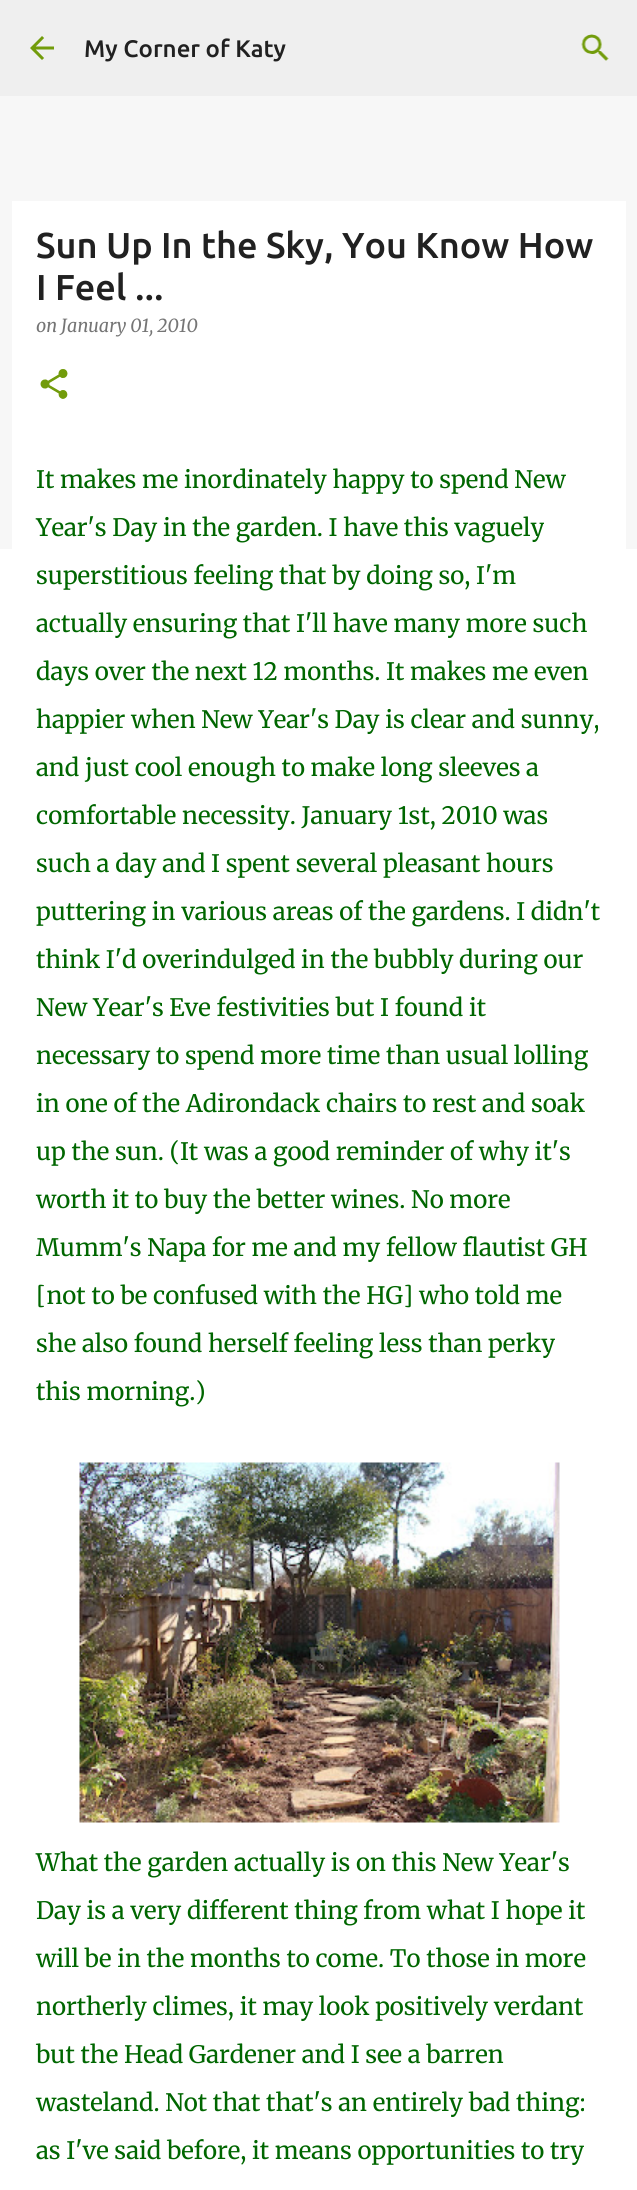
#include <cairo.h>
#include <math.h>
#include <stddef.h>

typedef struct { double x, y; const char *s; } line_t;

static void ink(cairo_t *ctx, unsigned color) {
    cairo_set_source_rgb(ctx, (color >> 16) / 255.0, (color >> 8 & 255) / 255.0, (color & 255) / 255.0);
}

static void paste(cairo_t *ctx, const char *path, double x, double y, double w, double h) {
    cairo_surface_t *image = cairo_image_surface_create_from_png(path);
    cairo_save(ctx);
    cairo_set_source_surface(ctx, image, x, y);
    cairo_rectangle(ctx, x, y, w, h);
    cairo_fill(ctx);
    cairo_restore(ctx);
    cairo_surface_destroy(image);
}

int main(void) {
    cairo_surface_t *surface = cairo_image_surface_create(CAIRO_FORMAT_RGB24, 637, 2190);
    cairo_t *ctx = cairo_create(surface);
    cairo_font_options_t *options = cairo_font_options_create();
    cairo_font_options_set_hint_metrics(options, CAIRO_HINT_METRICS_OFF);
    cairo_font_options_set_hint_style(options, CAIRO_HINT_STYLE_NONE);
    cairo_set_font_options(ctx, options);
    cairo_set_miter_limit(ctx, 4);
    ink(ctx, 0xF7F7F7);
    cairo_paint(ctx);
    ink(ctx, 0xEFEFEF);
    cairo_rectangle(ctx, 0, 0, 637, 96);
    cairo_fill(ctx);
    paste(ctx, "media/1.png", 30, 36, 24, 24);
    cairo_select_font_face(ctx, "Ubuntu Medium", CAIRO_FONT_SLANT_NORMAL, CAIRO_FONT_WEIGHT_NORMAL);
    cairo_set_font_size(ctx, 24);
    ink(ctx, 0x212121);
    cairo_move_to(ctx, 84, 57);
    cairo_show_text(ctx, "My Corner of Katy");
    paste(ctx, "media/2.png", 581, 34, 28, 27);
    ink(ctx, 0xFFFFFF);
    cairo_rectangle(ctx, 0, 549, 637, 1641);
    cairo_fill(ctx);
    cairo_rectangle(ctx, 12, 201, 614, 348);
    cairo_fill(ctx);
    cairo_set_font_size(ctx, 36);
    ink(ctx, 0x212121);
    cairo_move_to(ctx, 36, 258);
    cairo_show_text(ctx, "Sun Up In the Sky, You Know How");
    cairo_move_to(ctx, 36, 300);
    cairo_show_text(ctx, "I Feel ...");
    cairo_select_font_face(ctx, "Merriweather", CAIRO_FONT_SLANT_ITALIC, CAIRO_FONT_WEIGHT_NORMAL);
    cairo_set_font_size(ctx, 18);
    ink(ctx, 0x757575);
    cairo_move_to(ctx, 36, 332);
    cairo_show_text(ctx, "on January 01, 2010");
    paste(ctx, "media/3.png", 40, 369, 28, 30);
    cairo_select_font_face(ctx, "Merriweather Light", CAIRO_FONT_SLANT_NORMAL, CAIRO_FONT_WEIGHT_NORMAL);
    cairo_set_font_size(ctx, 24);
    ink(ctx, 0x006600);
    {
        static const line_t items[] = {
            {36, 488, "It makes me inordinately happy to spend New"},
            {36, 536, "Year's Day in the garden. I have this vaguely"},
            {36, 584, "superstitious feeling that by doing so, I'm"},
            {36, 632, "actually ensuring that I'll have many more such"},
            {36, 680, "days over the next 12 months. It makes me even"},
            {36, 728, "happier when New Year's Day is clear and sunny,"},
            {36, 776, "and just cool enough to make long sleeves a"},
            {36, 824, "comfortable necessity. January 1st, 2010 was"},
            {36, 872, "such a day and I spent several pleasant hours"},
            {36, 920, "puttering in various areas of the gardens. I didn't"},
            {36, 968, "think I'd overindulged in the bubbly during our"},
            {36, 1016, "New Year's Eve festivities but I found it"},
            {36, 1064, "necessary to spend more time than usual lolling"},
            {36, 1112, "in one of the Adirondack chairs to rest and soak"},
            {36, 1160, "up the sun. (It was a good reminder of why it's"},
            {36, 1208, "worth it to buy the better wines. No more"},
            {36, 1256, "Mumm's Napa for me and my fellow flautist GH"},
            {36, 1304, "[not to be confused with the HG] who told me"},
            {36, 1352, "she also found herself feeling less than perky"},
            {36, 1400, "this morning.)"},
        };
        for (size_t i = 0; i < sizeof items / sizeof *items; i++) {
            cairo_move_to(ctx, items[i].x, items[i].y);
            cairo_show_text(ctx, items[i].s);
        }
    }
    paste(ctx, "media/4.png", 79, 1462, 481, 361);
    {
        static const line_t items[] = {
            {36, 1871, "What the garden actually is on this New Year's"},
            {36, 1919, "Day is a very different thing from what I hope it"},
            {36, 1967, "will be in the months to come. To those in more"},
            {36, 2015, "northerly climes, it may look positively verdant"},
            {36, 2063, "but the Head Gardener and I see a barren"},
            {36, 2111, "wasteland. Not that that's an entirely bad thing:"},
            {36, 2159, "as I've said before, it means opportunities to try"},
        };
        for (size_t i = 0; i < sizeof items / sizeof *items; i++) {
            cairo_move_to(ctx, items[i].x, items[i].y);
            cairo_show_text(ctx, items[i].s);
        }
    }
    cairo_surface_write_to_png(surface, "image.png");
    cairo_font_options_destroy(options);
    cairo_destroy(ctx);
    cairo_surface_destroy(surface);
    return 0;
}
